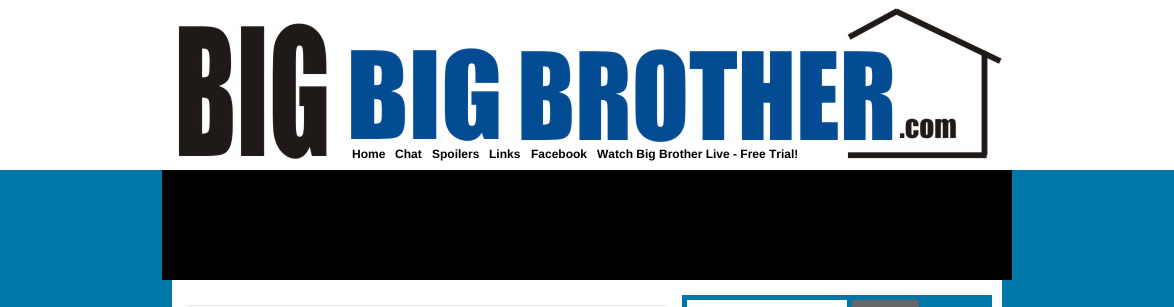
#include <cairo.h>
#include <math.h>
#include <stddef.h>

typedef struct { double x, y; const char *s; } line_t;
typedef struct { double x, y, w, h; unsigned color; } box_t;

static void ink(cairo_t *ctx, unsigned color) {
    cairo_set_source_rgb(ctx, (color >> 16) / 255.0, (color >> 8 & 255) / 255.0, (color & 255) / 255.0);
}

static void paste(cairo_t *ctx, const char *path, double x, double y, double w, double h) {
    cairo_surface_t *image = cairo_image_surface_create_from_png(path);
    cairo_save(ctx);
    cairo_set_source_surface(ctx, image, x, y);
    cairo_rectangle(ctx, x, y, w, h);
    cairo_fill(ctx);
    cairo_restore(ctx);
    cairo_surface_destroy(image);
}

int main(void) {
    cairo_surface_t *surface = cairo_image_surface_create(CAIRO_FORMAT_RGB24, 1174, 307);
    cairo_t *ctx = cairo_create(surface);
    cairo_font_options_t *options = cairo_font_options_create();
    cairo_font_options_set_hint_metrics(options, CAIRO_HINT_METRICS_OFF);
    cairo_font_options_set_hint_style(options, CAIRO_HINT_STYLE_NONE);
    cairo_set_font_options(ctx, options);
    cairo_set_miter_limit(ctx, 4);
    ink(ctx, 0x0077AA);
    cairo_paint(ctx);
    ink(ctx, 0xFFFFFF);
    cairo_rectangle(ctx, 0, 0, 1174, 170);
    cairo_fill(ctx);
    paste(ctx, "media/1.png", 178, 8, 824, 152);
    cairo_select_font_face(ctx, "Liberation Sans", CAIRO_FONT_SLANT_NORMAL, CAIRO_FONT_WEIGHT_BOLD);
    cairo_set_font_size(ctx, 12);
    ink(ctx, 0x000000);
    {
        static const line_t items[] = {
            {352, 158, "Home"},
            {395, 158, "Chat"},
            {432, 158, "Spoilers"},
            {489, 158, "Links"},
            {531, 158, "Facebook"},
            {597, 158, "Watch Big Brother Live - Free Trial!"},
        };
        for (size_t i = 0; i < sizeof items / sizeof *items; i++) {
            cairo_move_to(ctx, items[i].x, items[i].y);
            cairo_show_text(ctx, items[i].s);
        }
    }
    cairo_rectangle(ctx, 162, 170, 850, 110);
    cairo_fill(ctx);
    ink(ctx, 0xFFFFFF);
    cairo_rectangle(ctx, 172, 280, 830, 27);
    cairo_fill(ctx);
    cairo_new_path(ctx);
    cairo_move_to(ctx, 187, 305.5);
    cairo_line_to(ctx, 667, 305.5);
    ink(ctx, 0xCCCCCC);
    cairo_set_line_width(ctx, 1);
    cairo_set_dash(ctx, (double[]){1, 1}, 2, 0);
    cairo_stroke(ctx);
    {
        static const box_t items[] = {
            {682, 295, 310, 12, 0x0077AA},
            {687, 300, 160, 7, 0xFFFFFF},
            {852, 300, 67, 7, 0x666666},
        };
        for (size_t i = 0; i < sizeof items / sizeof *items; i++) {
            ink(ctx, items[i].color);
            cairo_rectangle(ctx, items[i].x, items[i].y, items[i].w, items[i].h);
            cairo_fill(ctx);
        }
    }
    cairo_surface_write_to_png(surface, "image.png");
    cairo_font_options_destroy(options);
    cairo_destroy(ctx);
    cairo_surface_destroy(surface);
    return 0;
}
